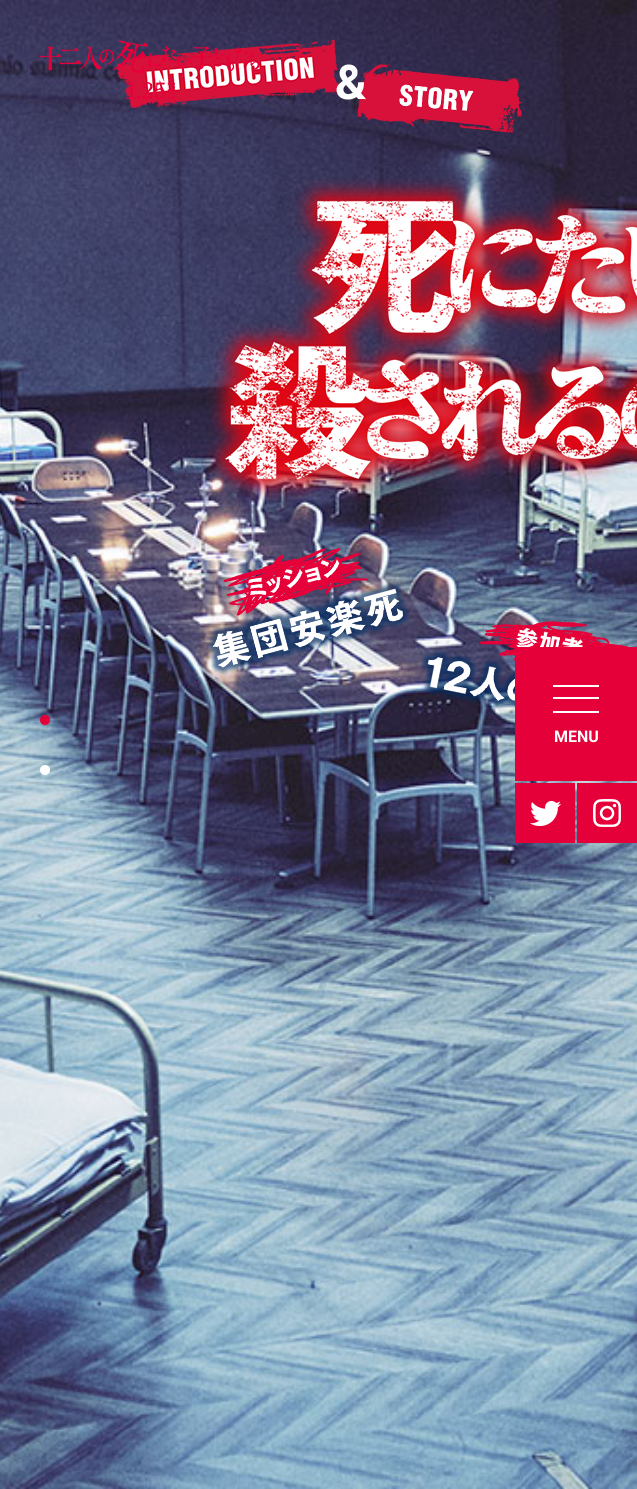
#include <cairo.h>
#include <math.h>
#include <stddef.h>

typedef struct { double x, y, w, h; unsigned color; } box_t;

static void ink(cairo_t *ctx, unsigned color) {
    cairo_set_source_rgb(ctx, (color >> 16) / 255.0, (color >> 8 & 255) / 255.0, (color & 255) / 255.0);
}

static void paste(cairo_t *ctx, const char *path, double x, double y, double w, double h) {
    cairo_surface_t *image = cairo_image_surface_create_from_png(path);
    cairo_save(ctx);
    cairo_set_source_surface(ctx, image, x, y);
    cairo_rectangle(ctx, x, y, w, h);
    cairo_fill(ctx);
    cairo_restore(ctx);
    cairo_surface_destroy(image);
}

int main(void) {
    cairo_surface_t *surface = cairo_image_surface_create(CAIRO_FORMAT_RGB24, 637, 1489);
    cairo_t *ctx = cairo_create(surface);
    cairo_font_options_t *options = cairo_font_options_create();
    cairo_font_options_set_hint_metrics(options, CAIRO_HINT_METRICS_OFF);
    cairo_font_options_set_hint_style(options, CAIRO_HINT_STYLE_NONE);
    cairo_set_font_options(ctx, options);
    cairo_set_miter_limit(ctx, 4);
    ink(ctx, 0xFFFFFF);
    cairo_paint(ctx);
    paste(ctx, "media/1.png", 0, 0, 637, 1489);
    paste(ctx, "media/2.png", 205, 178, 432, 323);
    paste(ctx, "media/3.png", 205, 548, 205, 128);
    paste(ctx, "media/4.png", 420, 621, 208, 88);
    paste(ctx, "media/6.png", 116, 40, 407, 93);
    paste(ctx, "media/5.png", 40, 40, 220, 59);
    ink(ctx, 0xE60039);
    cairo_arc(ctx, 45, 720, 5, 0, 2 * M_PI);
    cairo_fill(ctx);
    ink(ctx, 0xFFFFFF);
    cairo_arc(ctx, 45, 770, 5, 0, 2 * M_PI);
    cairo_fill(ctx);
    {
        static const box_t items[] = {
            {515, 647, 122, 134, 0xE60039},
            {553, 685, 46, 2, 0xFFFFFF},
            {553, 697, 46, 2, 0xFFFFFF},
            {553, 711, 46, 2, 0xFFFFFF},
        };
        for (size_t i = 0; i < sizeof items / sizeof *items; i++) {
            ink(ctx, items[i].color);
            cairo_rectangle(ctx, items[i].x, items[i].y, items[i].w, items[i].h);
            cairo_fill(ctx);
        }
    }
    cairo_select_font_face(ctx, "Roboto", CAIRO_FONT_SLANT_NORMAL, CAIRO_FONT_WEIGHT_BOLD);
    cairo_set_font_size(ctx, 16);
    cairo_move_to(ctx, 554, 742);
    cairo_show_text(ctx, "MENU");
    ink(ctx, 0xE60039);
    cairo_rectangle(ctx, 515, 783, 60, 60);
    cairo_fill(ctx);
    paste(ctx, "media/7.png", 530, 801, 31, 25);
    cairo_rectangle(ctx, 577, 783, 60, 60);
    cairo_fill(ctx);
    paste(ctx, "media/8.png", 593, 799, 28, 28);
    cairo_surface_write_to_png(surface, "image.png");
    cairo_font_options_destroy(options);
    cairo_destroy(ctx);
    cairo_surface_destroy(surface);
    return 0;
}
